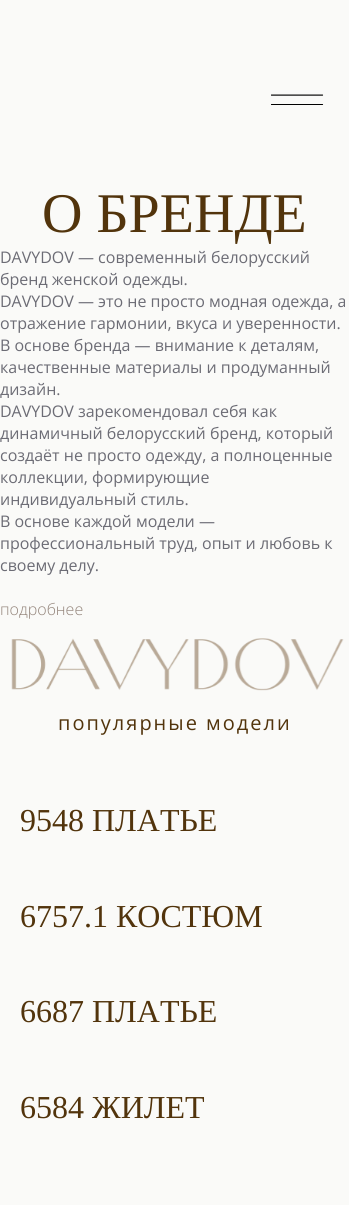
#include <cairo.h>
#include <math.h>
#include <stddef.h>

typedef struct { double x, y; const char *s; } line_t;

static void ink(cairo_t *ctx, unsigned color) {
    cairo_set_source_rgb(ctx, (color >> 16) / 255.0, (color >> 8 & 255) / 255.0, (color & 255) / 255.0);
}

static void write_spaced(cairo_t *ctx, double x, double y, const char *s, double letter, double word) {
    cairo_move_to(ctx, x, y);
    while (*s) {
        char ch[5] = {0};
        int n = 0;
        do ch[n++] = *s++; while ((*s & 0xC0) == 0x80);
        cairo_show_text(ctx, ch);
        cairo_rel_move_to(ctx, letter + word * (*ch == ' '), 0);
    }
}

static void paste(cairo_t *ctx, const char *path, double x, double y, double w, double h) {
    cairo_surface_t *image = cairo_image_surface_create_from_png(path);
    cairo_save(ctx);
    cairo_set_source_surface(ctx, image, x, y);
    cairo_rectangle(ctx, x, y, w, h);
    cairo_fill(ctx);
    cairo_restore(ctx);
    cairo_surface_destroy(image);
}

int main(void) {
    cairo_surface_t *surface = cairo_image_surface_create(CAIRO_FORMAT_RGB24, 349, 1205);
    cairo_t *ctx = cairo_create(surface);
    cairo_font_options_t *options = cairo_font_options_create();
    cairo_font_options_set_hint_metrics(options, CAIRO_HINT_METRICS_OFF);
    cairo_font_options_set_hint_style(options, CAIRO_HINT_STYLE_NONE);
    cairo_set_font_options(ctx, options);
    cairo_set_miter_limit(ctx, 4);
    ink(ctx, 0xFAFAF8);
    cairo_paint(ctx);
    paste(ctx, "media/1.png", 271, 94, 53, 11);
    cairo_select_font_face(ctx, "Liberation Serif", CAIRO_FONT_SLANT_NORMAL, CAIRO_FONT_WEIGHT_NORMAL);
    cairo_set_font_size(ctx, 56);
    ink(ctx, 0x52340C);
    cairo_move_to(ctx, 42, 232);
    cairo_show_text(ctx, "О БРЕНДЕ");
    cairo_select_font_face(ctx, "Open Sans", CAIRO_FONT_SLANT_NORMAL, CAIRO_FONT_WEIGHT_NORMAL);
    cairo_set_font_size(ctx, 16);
    ink(ctx, 0x6C6C75);
    {
        static const line_t items[] = {
            {0, 263, "DAVYDOV — современный белорусский"},
            {0, 285, "бренд женской одежды."},
            {0, 307, "DAVYDOV — это не просто модная одежда, а"},
            {0, 329, "отражение гармонии, вкуса и уверенности."},
            {0, 351, "В основе бренда — внимание к деталям,"},
            {0, 373, "качественные материалы и продуманный"},
            {0, 395, "дизайн."},
            {0, 417, "DAVYDOV зарекомендовал себя как"},
            {0, 439, "динамичный белорусский бренд, который"},
            {0, 461, "создаёт не просто одежду, а полноценные"},
            {0, 483, "коллекции, формирующие"},
            {0, 505, "индивидуальный стиль."},
            {0, 527, "В основе каждой модели —"},
            {0, 549, "профессиональный труд, опыт и любовь к"},
            {0, 571, "своему делу."},
        };
        for (size_t i = 0; i < sizeof items / sizeof *items; i++) {
            cairo_move_to(ctx, items[i].x, items[i].y);
            cairo_show_text(ctx, items[i].s);
        }
    }
    cairo_select_font_face(ctx, "Open Sans Light", CAIRO_FONT_SLANT_NORMAL, CAIRO_FONT_WEIGHT_NORMAL);
    ink(ctx, 0x928379);
    cairo_move_to(ctx, 0, 615);
    cairo_show_text(ctx, "подробнее");
    paste(ctx, "media/2.png", 11, 638, 333, 53);
    cairo_select_font_face(ctx, "Open Sans", CAIRO_FONT_SLANT_NORMAL, CAIRO_FONT_WEIGHT_NORMAL);
    cairo_set_font_size(ctx, 20);
    ink(ctx, 0x52340C);
    write_spaced(ctx, 58, 730, "популярные модели", 2, 0);
    cairo_select_font_face(ctx, "Liberation Serif", CAIRO_FONT_SLANT_NORMAL, CAIRO_FONT_WEIGHT_NORMAL);
    cairo_set_font_size(ctx, 32);
    {
        static const line_t items[] = {
            {20, 831, "9548 ПЛАТЬЕ"},
            {20, 927, "6757.1 КОСТЮМ"},
            {20, 1022, "6687 ПЛАТЬЕ"},
            {20, 1118, "6584 ЖИЛЕТ"},
        };
        for (size_t i = 0; i < sizeof items / sizeof *items; i++) {
            cairo_move_to(ctx, items[i].x, items[i].y);
            cairo_show_text(ctx, items[i].s);
        }
    }
    cairo_surface_write_to_png(surface, "image.png");
    cairo_font_options_destroy(options);
    cairo_destroy(ctx);
    cairo_surface_destroy(surface);
    return 0;
}
